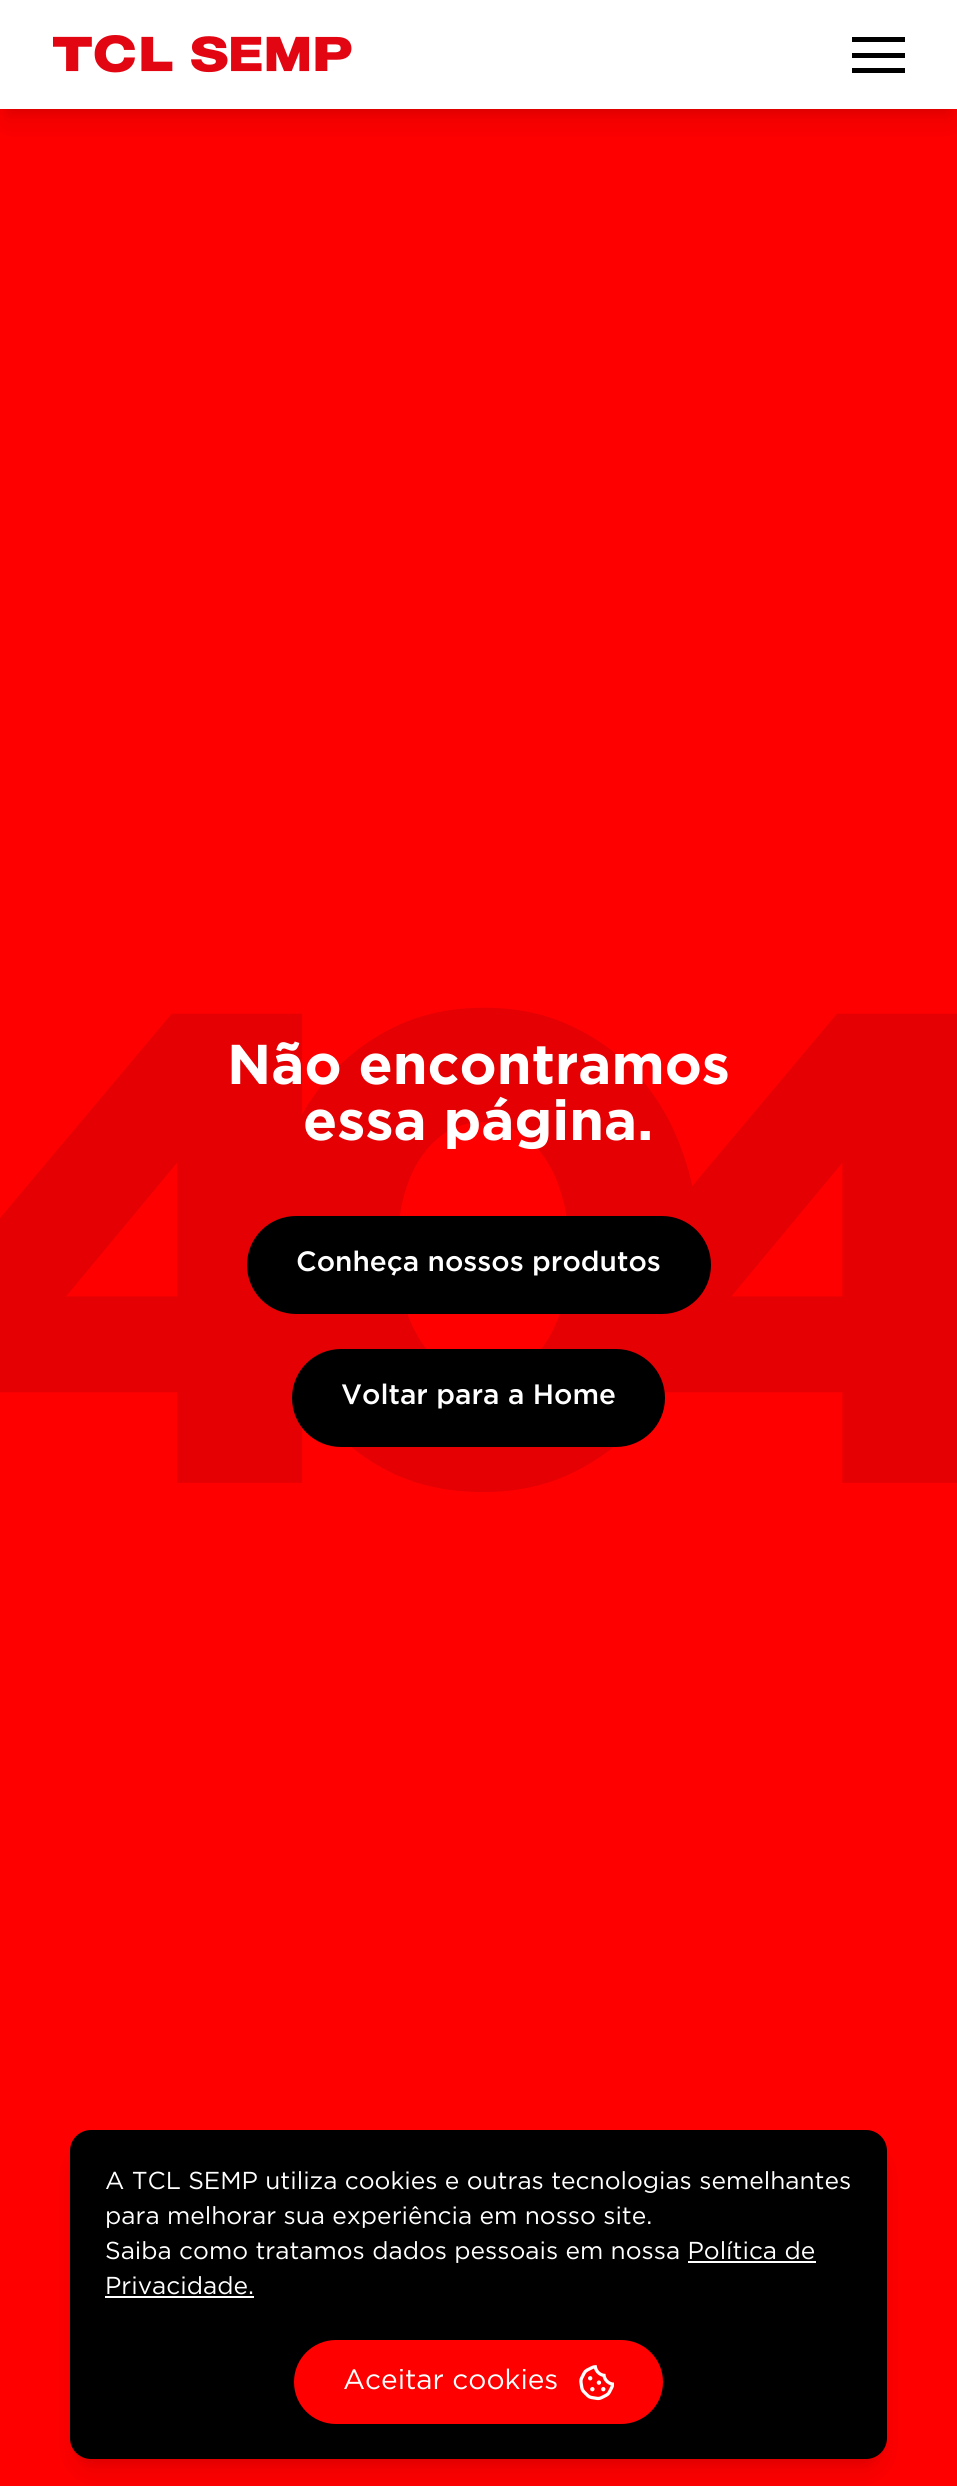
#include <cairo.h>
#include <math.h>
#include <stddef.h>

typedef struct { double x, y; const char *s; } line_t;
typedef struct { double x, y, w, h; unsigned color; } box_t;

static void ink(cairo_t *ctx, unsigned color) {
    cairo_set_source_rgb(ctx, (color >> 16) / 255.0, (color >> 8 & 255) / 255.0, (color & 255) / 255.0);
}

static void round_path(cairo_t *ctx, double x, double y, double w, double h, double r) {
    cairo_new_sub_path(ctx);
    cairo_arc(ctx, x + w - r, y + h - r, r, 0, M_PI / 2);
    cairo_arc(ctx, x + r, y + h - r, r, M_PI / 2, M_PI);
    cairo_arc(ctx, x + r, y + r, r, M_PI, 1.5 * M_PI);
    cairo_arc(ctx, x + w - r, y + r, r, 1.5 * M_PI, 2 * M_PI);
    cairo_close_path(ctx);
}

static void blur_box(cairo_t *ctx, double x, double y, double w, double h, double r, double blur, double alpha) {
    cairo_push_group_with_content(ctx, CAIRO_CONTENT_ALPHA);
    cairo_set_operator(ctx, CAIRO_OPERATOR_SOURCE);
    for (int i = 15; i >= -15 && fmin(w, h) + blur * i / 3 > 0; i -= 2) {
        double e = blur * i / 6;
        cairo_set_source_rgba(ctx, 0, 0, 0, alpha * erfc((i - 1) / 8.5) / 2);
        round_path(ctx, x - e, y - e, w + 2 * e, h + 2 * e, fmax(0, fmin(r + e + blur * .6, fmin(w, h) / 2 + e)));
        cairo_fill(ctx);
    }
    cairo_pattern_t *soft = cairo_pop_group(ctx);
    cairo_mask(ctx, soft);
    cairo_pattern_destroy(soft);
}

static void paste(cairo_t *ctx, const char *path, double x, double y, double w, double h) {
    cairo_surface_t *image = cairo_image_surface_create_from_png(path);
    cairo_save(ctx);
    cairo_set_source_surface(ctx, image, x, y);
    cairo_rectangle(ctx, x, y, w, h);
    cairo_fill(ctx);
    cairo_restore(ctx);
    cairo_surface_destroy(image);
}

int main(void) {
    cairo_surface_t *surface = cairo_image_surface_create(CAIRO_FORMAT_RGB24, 957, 2486);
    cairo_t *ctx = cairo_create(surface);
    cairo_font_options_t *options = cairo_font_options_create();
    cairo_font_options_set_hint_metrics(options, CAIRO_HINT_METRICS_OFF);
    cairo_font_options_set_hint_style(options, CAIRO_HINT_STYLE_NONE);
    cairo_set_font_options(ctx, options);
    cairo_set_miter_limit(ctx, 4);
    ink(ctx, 0xFF0000);
    cairo_paint(ctx);
    ink(ctx, 0x000000);
    blur_box(ctx, 7, 14, 943, 95, 0, 5, 0.1);
    blur_box(ctx, 5, 23, 947, 98, 0, 13, 0.1);
    ink(ctx, 0xFFFFFF);
    cairo_rectangle(ctx, 0, 0, 957, 109);
    cairo_fill(ctx);
    paste(ctx, "media/1.png", 53, 35, 299, 38);
    {
        static const box_t items[] = {
            {852, 37, 53, 5, 0x000000},
            {852, 53, 53, 5, 0x000000},
            {852, 68, 53, 5, 0x000000},
        };
        for (size_t i = 0; i < sizeof items / sizeof *items; i++) {
            ink(ctx, items[i].color);
            cairo_rectangle(ctx, items[i].x, items[i].y, items[i].w, items[i].h);
            cairo_fill(ctx);
        }
    }
    paste(ctx, "media/2.png", 0, 1007, 957, 485);
    cairo_select_font_face(ctx, "Gotham", CAIRO_FONT_SLANT_NORMAL, CAIRO_FONT_WEIGHT_BOLD);
    cairo_set_font_size(ctx, 56);
    ink(ctx, 0xFFFFFF);
    cairo_move_to(ctx, 227, 1084);
    cairo_show_text(ctx, "Não encontramos");
    cairo_move_to(ctx, 303, 1140);
    cairo_show_text(ctx, "essa página.");
    ink(ctx, 0x000000);
    round_path(ctx, 247, 1216, 464, 98, 49);
    cairo_fill(ctx);
    cairo_select_font_face(ctx, "Gotham Medium", CAIRO_FONT_SLANT_NORMAL, CAIRO_FONT_WEIGHT_NORMAL);
    cairo_set_font_size(ctx, 28);
    ink(ctx, 0xFFFFFF);
    cairo_move_to(ctx, 296, 1271);
    cairo_show_text(ctx, "Conheça nossos produtos");
    ink(ctx, 0x000000);
    round_path(ctx, 292, 1349, 373, 98, 49);
    cairo_fill(ctx);
    ink(ctx, 0xFFFFFF);
    cairo_move_to(ctx, 341, 1404);
    cairo_show_text(ctx, "Voltar para a Home");
    ink(ctx, 0x000000);
    blur_box(ctx, 77, 2144, 803, 315, 14, 5, 0.1);
    blur_box(ctx, 75, 2153, 807, 318, 16, 13, 0.1);
    ink(ctx, 0x000000);
    round_path(ctx, 70, 2130, 817, 329, 21);
    cairo_fill(ctx);
    cairo_select_font_face(ctx, "Gotham", CAIRO_FONT_SLANT_NORMAL, CAIRO_FONT_WEIGHT_NORMAL);
    cairo_set_font_size(ctx, 24.5);
    ink(ctx, 0xFFFFFF);
    {
        static const line_t items[] = {
            {105, 2189, "A TCL SEMP utiliza cookies e outras tecnologias semelhantes"},
            {105, 2224, "para melhorar sua experiência em nosso site."},
            {105, 2259, "Saiba como tratamos dados pessoais em nossa Política de"},
            {105, 2294, "Privacidade."},
        };
        for (size_t i = 0; i < sizeof items / sizeof *items; i++) {
            cairo_move_to(ctx, items[i].x, items[i].y);
            cairo_show_text(ctx, items[i].s);
        }
    }
    cairo_rectangle(ctx, 688, 2261, 128, 2);
    cairo_fill(ctx);
    cairo_rectangle(ctx, 105, 2296, 149, 2);
    cairo_fill(ctx);
    ink(ctx, 0xFF0000);
    round_path(ctx, 294, 2340, 369, 84, 42);
    cairo_fill(ctx);
    cairo_set_font_size(ctx, 28);
    ink(ctx, 0xFFFFFF);
    cairo_move_to(ctx, 343, 2389);
    cairo_show_text(ctx, "Aceitar cookies");
    paste(ctx, "media/3.png", 579, 2365, 35, 36);
    cairo_surface_write_to_png(surface, "image.png");
    cairo_font_options_destroy(options);
    cairo_destroy(ctx);
    cairo_surface_destroy(surface);
    return 0;
}
